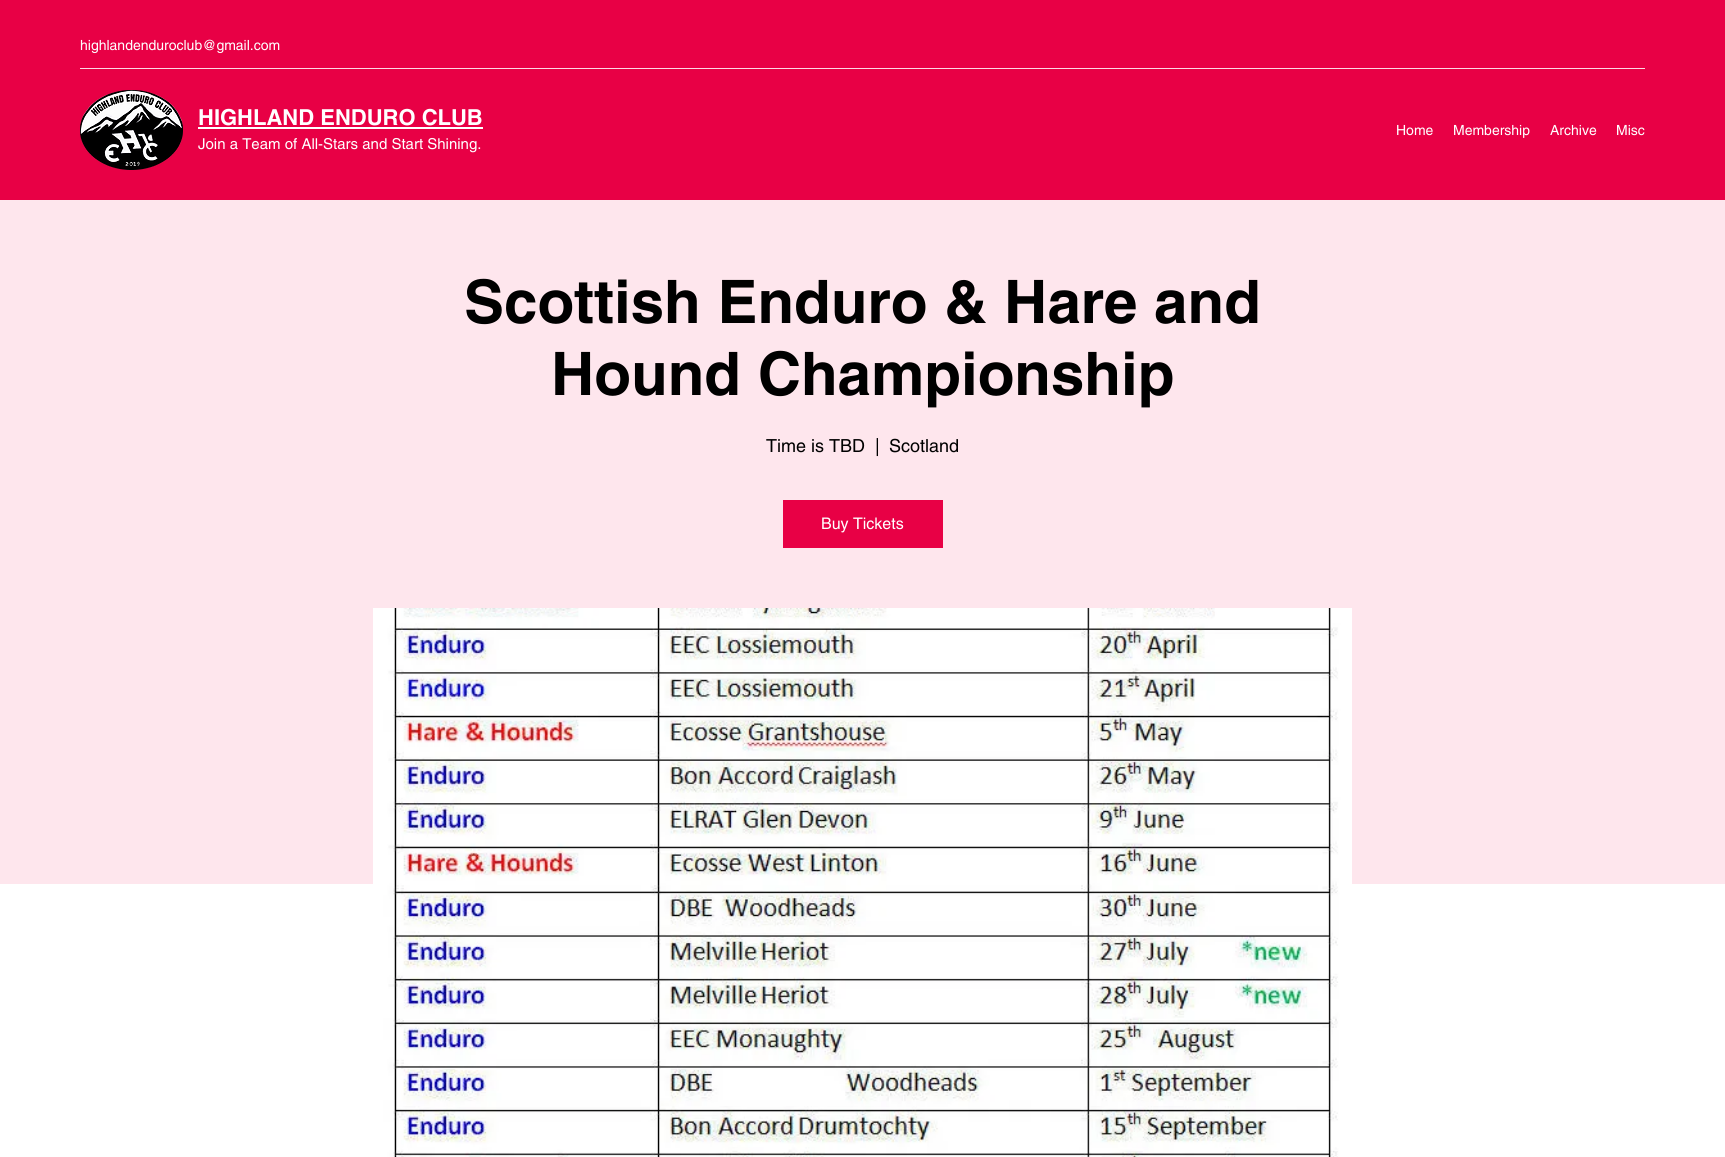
#include <cairo.h>
#include <math.h>
#include <stddef.h>

typedef struct { double x, y; const char *s; } line_t;

static void ink(cairo_t *ctx, unsigned color) {
    cairo_set_source_rgb(ctx, (color >> 16) / 255.0, (color >> 8 & 255) / 255.0, (color & 255) / 255.0);
}

static void paste(cairo_t *ctx, const char *path, double x, double y, double w, double h) {
    cairo_surface_t *image = cairo_image_surface_create_from_png(path);
    cairo_save(ctx);
    cairo_set_source_surface(ctx, image, x, y);
    cairo_rectangle(ctx, x, y, w, h);
    cairo_fill(ctx);
    cairo_restore(ctx);
    cairo_surface_destroy(image);
}

int main(void) {
    cairo_surface_t *surface = cairo_image_surface_create(CAIRO_FORMAT_RGB24, 1725, 1157);
    cairo_t *ctx = cairo_create(surface);
    cairo_font_options_t *options = cairo_font_options_create();
    cairo_font_options_set_hint_metrics(options, CAIRO_HINT_METRICS_OFF);
    cairo_font_options_set_hint_style(options, CAIRO_HINT_STYLE_NONE);
    cairo_set_font_options(ctx, options);
    cairo_set_miter_limit(ctx, 4);
    ink(ctx, 0xFFFFFF);
    cairo_paint(ctx);
    ink(ctx, 0xE80045);
    cairo_rectangle(ctx, 0, 0, 1725, 200);
    cairo_fill(ctx);
    cairo_select_font_face(ctx, "helvetica", CAIRO_FONT_SLANT_NORMAL, CAIRO_FONT_WEIGHT_NORMAL);
    cairo_set_font_size(ctx, 14);
    ink(ctx, 0xFFFFFF);
    cairo_move_to(ctx, 80, 50);
    cairo_show_text(ctx, "highlandenduroclub@gmail.com");
    ink(ctx, 0xFCD9E3);
    cairo_rectangle(ctx, 80, 68, 1565, 1);
    cairo_fill(ctx);
    paste(ctx, "media/1.png", 80, 90, 103, 80);
    cairo_select_font_face(ctx, "helvetica", CAIRO_FONT_SLANT_NORMAL, CAIRO_FONT_WEIGHT_BOLD);
    cairo_set_font_size(ctx, 22);
    ink(ctx, 0xFFFFFF);
    cairo_move_to(ctx, 198, 125);
    cairo_show_text(ctx, "HIGHLAND ENDURO CLUB");
    cairo_rectangle(ctx, 198, 127, 285, 2);
    cairo_fill(ctx);
    cairo_select_font_face(ctx, "helvetica", CAIRO_FONT_SLANT_NORMAL, CAIRO_FONT_WEIGHT_NORMAL);
    cairo_set_font_size(ctx, 15);
    cairo_move_to(ctx, 198, 149);
    cairo_show_text(ctx, "Join a Team of All-Stars and Start Shining.");
    cairo_set_font_size(ctx, 14);
    {
        static const line_t items[] = {
            {1396, 135, "Home"},
            {1453, 135, "Membership"},
            {1550, 135, "Archive"},
            {1616, 135, "Misc"},
        };
        for (size_t i = 0; i < sizeof items / sizeof *items; i++) {
            cairo_move_to(ctx, items[i].x, items[i].y);
            cairo_show_text(ctx, items[i].s);
        }
    }
    ink(ctx, 0xFEE6ED);
    cairo_rectangle(ctx, 0, 200, 1725, 684);
    cairo_fill(ctx);
    cairo_select_font_face(ctx, "helvetica", CAIRO_FONT_SLANT_NORMAL, CAIRO_FONT_WEIGHT_BOLD);
    cairo_set_font_size(ctx, 60);
    ink(ctx, 0x000000);
    cairo_move_to(ctx, 464, 323);
    cairo_show_text(ctx, "Scottish Enduro & Hare and");
    cairo_move_to(ctx, 551, 395);
    cairo_show_text(ctx, "Hound Championship");
    cairo_select_font_face(ctx, "helvetica", CAIRO_FONT_SLANT_NORMAL, CAIRO_FONT_WEIGHT_NORMAL);
    cairo_set_font_size(ctx, 18);
    {
        static const line_t items[] = {
            {766, 452, "Time is TBD"},
            {875, 452, "|"},
            {889, 452, "Scotland"},
        };
        for (size_t i = 0; i < sizeof items / sizeof *items; i++) {
            cairo_move_to(ctx, items[i].x, items[i].y);
            cairo_show_text(ctx, items[i].s);
        }
    }
    ink(ctx, 0xE80045);
    cairo_rectangle(ctx, 783, 500, 160, 48);
    cairo_fill(ctx);
    cairo_set_font_size(ctx, 16);
    ink(ctx, 0xFFFFFF);
    cairo_move_to(ctx, 821, 529);
    cairo_show_text(ctx, "Buy Tickets");
    paste(ctx, "media/2.png", 373, 608, 979, 549);
    cairo_surface_write_to_png(surface, "image.png");
    cairo_font_options_destroy(options);
    cairo_destroy(ctx);
    cairo_surface_destroy(surface);
    return 0;
}
